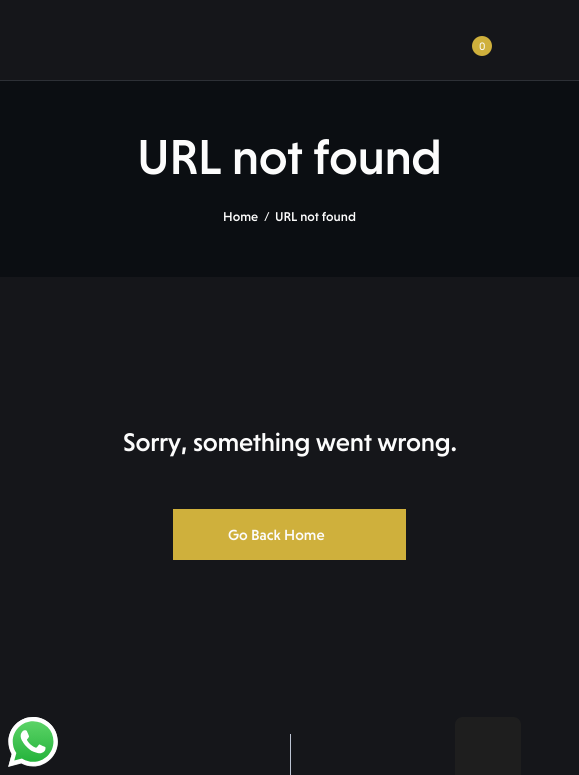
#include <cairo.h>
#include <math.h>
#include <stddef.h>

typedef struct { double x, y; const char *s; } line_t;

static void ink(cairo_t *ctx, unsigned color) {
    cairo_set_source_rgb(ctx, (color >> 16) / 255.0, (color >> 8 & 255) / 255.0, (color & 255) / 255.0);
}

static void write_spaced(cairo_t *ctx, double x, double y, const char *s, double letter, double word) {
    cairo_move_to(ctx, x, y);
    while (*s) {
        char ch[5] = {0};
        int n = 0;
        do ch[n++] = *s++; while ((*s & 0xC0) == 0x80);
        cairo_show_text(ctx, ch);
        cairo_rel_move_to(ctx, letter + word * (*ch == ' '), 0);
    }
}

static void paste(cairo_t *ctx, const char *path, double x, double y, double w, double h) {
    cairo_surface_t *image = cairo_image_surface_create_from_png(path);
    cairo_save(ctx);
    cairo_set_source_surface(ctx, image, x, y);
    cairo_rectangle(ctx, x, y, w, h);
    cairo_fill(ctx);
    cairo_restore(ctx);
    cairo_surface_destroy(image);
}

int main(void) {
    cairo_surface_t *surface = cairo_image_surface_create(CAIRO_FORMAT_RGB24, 579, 775);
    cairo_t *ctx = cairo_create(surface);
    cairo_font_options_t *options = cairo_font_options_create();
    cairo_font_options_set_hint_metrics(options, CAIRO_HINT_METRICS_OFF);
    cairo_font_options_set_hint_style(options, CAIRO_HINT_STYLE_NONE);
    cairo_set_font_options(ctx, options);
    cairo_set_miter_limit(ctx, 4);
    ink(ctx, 0x15161A);
    cairo_paint(ctx);
    ink(ctx, 0x2D3036);
    cairo_rectangle(ctx, 0, 80, 579, 1);
    cairo_fill(ctx);
    ink(ctx, 0xCFB03C);
    cairo_arc(ctx, 482, 46, 10, 0, 2 * M_PI);
    cairo_fill(ctx);
    cairo_select_font_face(ctx, "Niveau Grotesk", CAIRO_FONT_SLANT_NORMAL, CAIRO_FONT_WEIGHT_NORMAL);
    cairo_set_font_size(ctx, 11);
    ink(ctx, 0xFCFCFC);
    cairo_move_to(ctx, 479, 50);
    cairo_show_text(ctx, "0");
    ink(ctx, 0x0B0E12);
    cairo_rectangle(ctx, 0, 81, 579, 196);
    cairo_fill(ctx);
    cairo_select_font_face(ctx, "Niveau Grotesk Medium", CAIRO_FONT_SLANT_NORMAL, CAIRO_FONT_WEIGHT_NORMAL);
    cairo_set_font_size(ctx, 50);
    ink(ctx, 0xFCFCFC);
    write_spaced(ctx, 137, 174, "URL not found", -0.5, 0);
    cairo_set_font_size(ctx, 13);
    {
        static const line_t items[] = {
            {223, 221, "Home"},
            {264, 221, "/"},
            {275, 221, "URL not found"},
        };
        for (size_t i = 0; i < sizeof items / sizeof *items; i++) {
            cairo_move_to(ctx, items[i].x, items[i].y);
            cairo_show_text(ctx, items[i].s);
        }
    }
    cairo_set_font_size(ctx, 26);
    write_spaced(ctx, 123, 451, "Sorry, something went wrong.", -0.25, 0);
    ink(ctx, 0xCFB03C);
    cairo_rectangle(ctx, 173, 509, 233, 51);
    cairo_fill(ctx);
    cairo_set_font_size(ctx, 15);
    ink(ctx, 0xFCFCFC);
    cairo_move_to(ctx, 228, 540);
    cairo_show_text(ctx, "Go Back Home");
    ink(ctx, 0xBCC4D3);
    cairo_rectangle(ctx, 290, 734, 1, 41);
    cairo_fill(ctx);
    paste(ctx, "media/1.png", 8, 717, 50, 50);
    ink(ctx, 0x1E1E1E);
    cairo_new_path(ctx);
    cairo_move_to(ctx, 463, 717);
    cairo_line_to(ctx, 513, 717);
    cairo_curve_to(ctx, 517.5, 717, 521, 720.5, 521, 725);
    cairo_line_to(ctx, 521, 775);
    cairo_line_to(ctx, 455, 775);
    cairo_line_to(ctx, 455, 725);
    cairo_curve_to(ctx, 455, 720.5, 458.5, 717, 463, 717);
    cairo_close_path(ctx);
    cairo_fill(ctx);
    cairo_surface_write_to_png(surface, "image.png");
    cairo_font_options_destroy(options);
    cairo_destroy(ctx);
    cairo_surface_destroy(surface);
    return 0;
}
